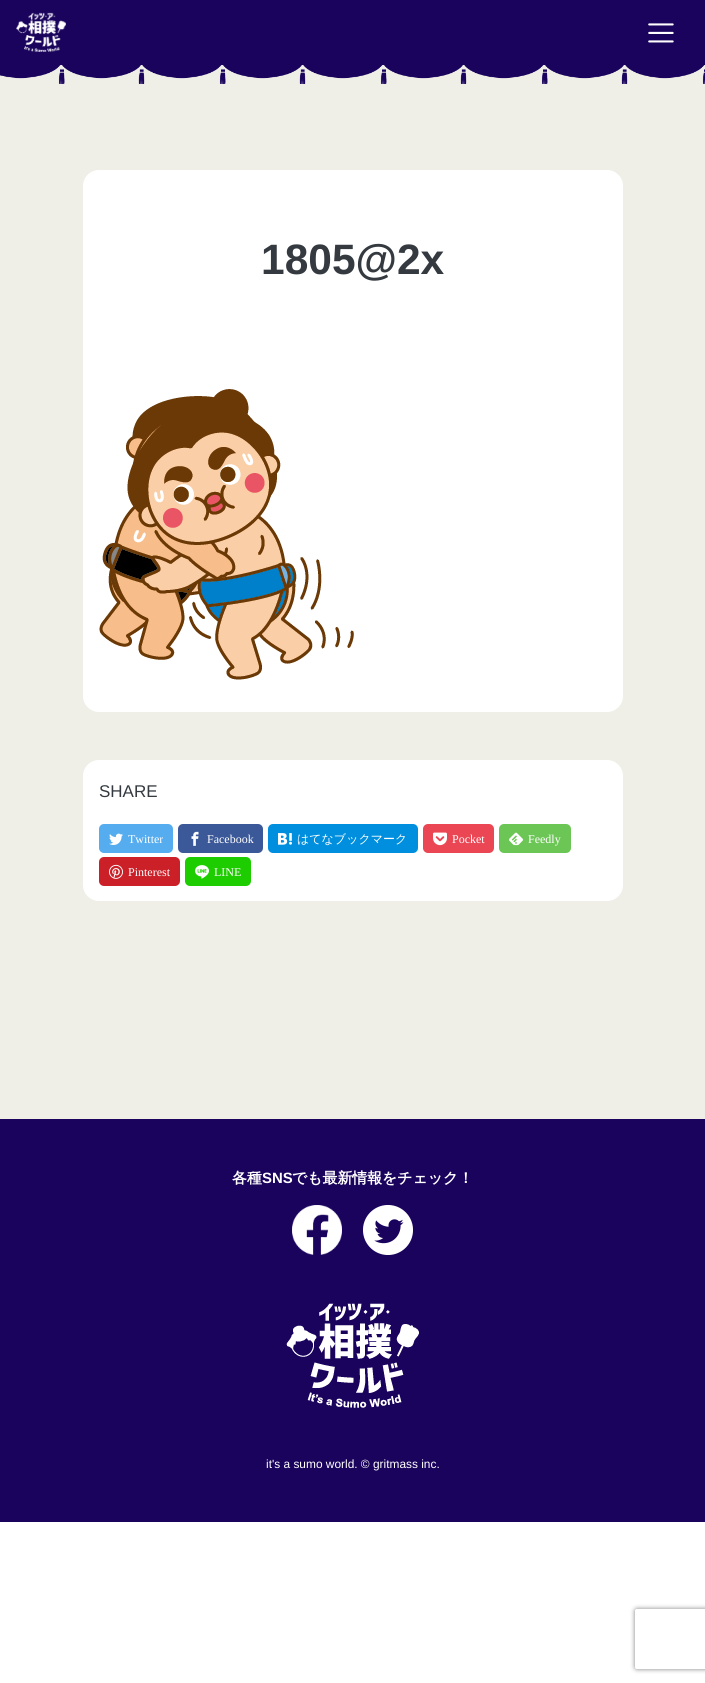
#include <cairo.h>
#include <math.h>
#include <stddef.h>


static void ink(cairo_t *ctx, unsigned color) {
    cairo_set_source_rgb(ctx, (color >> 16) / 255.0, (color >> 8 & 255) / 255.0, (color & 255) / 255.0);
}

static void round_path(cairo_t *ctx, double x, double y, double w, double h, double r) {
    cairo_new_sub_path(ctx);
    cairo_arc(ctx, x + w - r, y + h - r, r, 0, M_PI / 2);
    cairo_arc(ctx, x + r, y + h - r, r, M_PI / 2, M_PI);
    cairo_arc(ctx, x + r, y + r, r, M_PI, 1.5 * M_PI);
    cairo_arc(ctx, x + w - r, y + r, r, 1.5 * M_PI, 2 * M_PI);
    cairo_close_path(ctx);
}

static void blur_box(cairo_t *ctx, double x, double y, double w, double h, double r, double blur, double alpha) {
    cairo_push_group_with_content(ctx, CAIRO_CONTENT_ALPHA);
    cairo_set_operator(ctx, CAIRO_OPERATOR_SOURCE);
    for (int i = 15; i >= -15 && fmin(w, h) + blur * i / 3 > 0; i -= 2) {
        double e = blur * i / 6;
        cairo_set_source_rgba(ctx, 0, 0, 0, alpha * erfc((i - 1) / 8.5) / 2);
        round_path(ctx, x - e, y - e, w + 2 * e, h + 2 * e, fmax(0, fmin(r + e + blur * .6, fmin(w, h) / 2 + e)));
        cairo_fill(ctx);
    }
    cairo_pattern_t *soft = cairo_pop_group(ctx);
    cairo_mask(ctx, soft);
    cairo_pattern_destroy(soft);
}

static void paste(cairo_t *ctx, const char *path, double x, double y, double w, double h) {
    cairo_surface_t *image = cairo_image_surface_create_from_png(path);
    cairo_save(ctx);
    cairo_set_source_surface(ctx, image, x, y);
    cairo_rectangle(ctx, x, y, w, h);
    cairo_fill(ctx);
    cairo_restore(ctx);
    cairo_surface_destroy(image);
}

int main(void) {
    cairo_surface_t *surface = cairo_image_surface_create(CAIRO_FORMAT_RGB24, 705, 1683);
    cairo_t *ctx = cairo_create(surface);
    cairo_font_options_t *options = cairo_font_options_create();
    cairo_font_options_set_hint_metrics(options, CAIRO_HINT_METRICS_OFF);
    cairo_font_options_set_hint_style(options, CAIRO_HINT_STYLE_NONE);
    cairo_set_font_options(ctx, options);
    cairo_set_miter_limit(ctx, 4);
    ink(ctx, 0xFFFFFF);
    cairo_paint(ctx);
    ink(ctx, 0x1A035C);
    cairo_rectangle(ctx, 0, 0, 705, 65);
    cairo_fill(ctx);
    paste(ctx, "media/1.png", 16, 12, 50, 40);
    paste(ctx, "media/2.png", 648, 23, 26, 20);
    ink(ctx, 0xEFEFE8);
    cairo_rectangle(ctx, 0, 65, 705, 1054);
    cairo_fill(ctx);
    paste(ctx, "media/3.png", 0, 65, 705, 19);
    ink(ctx, 0xFFFFFF);
    round_path(ctx, 83, 170, 540, 542, 16);
    cairo_fill(ctx);
    cairo_select_font_face(ctx, "Liberation Sans", CAIRO_FONT_SLANT_NORMAL, CAIRO_FONT_WEIGHT_BOLD);
    cairo_set_font_size(ctx, 42.5);
    ink(ctx, 0x343A40);
    cairo_move_to(ctx, 261, 274);
    cairo_show_text(ctx, "1805@2x");
    paste(ctx, "media/4.png", 99, 389, 255, 291);
    ink(ctx, 0xFFFFFF);
    round_path(ctx, 83, 760, 540, 141, 16);
    cairo_fill(ctx);
    cairo_select_font_face(ctx, "Liberation Sans", CAIRO_FONT_SLANT_NORMAL, CAIRO_FONT_WEIGHT_NORMAL);
    cairo_set_font_size(ctx, 17);
    ink(ctx, 0x343A40);
    cairo_move_to(ctx, 99, 797);
    cairo_show_text(ctx, "SHARE");
    ink(ctx, 0x55ACEE);
    round_path(ctx, 99, 824, 74, 29, 5);
    cairo_fill(ctx);
    paste(ctx, "media/5.png", 109, 833, 14, 12);
    cairo_select_font_face(ctx, "Liberation Serif", CAIRO_FONT_SLANT_NORMAL, CAIRO_FONT_WEIGHT_NORMAL);
    cairo_set_font_size(ctx, 12);
    ink(ctx, 0xFFFFFF);
    cairo_move_to(ctx, 128, 843);
    cairo_show_text(ctx, "Twitter");
    ink(ctx, 0x3B5998);
    round_path(ctx, 178, 824, 85, 29, 5);
    cairo_fill(ctx);
    paste(ctx, "media/6.png", 191, 831, 8, 15);
    ink(ctx, 0xFFFFFF);
    cairo_move_to(ctx, 207, 843);
    cairo_show_text(ctx, "Facebook");
    ink(ctx, 0x008FDE);
    round_path(ctx, 268, 824, 150, 29, 5);
    cairo_fill(ctx);
    paste(ctx, "media/7.png", 278, 833, 14, 12);
    cairo_select_font_face(ctx, "WenQuanYi Zen Hei Medium", CAIRO_FONT_SLANT_NORMAL, CAIRO_FONT_WEIGHT_NORMAL);
    ink(ctx, 0xFFFFFF);
    cairo_move_to(ctx, 297, 843);
    cairo_show_text(ctx, "はてなブックマーク");
    ink(ctx, 0xEB4654);
    round_path(ctx, 423, 824, 71, 29, 5);
    cairo_fill(ctx);
    paste(ctx, "media/8.png", 433, 832, 14, 14);
    cairo_select_font_face(ctx, "Liberation Serif", CAIRO_FONT_SLANT_NORMAL, CAIRO_FONT_WEIGHT_NORMAL);
    ink(ctx, 0xFFFFFF);
    cairo_move_to(ctx, 452, 843);
    cairo_show_text(ctx, "Pocket");
    ink(ctx, 0x6CC655);
    round_path(ctx, 499, 824, 72, 29, 5);
    cairo_fill(ctx);
    paste(ctx, "media/9.png", 509, 832, 14, 14);
    ink(ctx, 0xFFFFFF);
    cairo_move_to(ctx, 528, 843);
    cairo_show_text(ctx, "Feedly");
    ink(ctx, 0xCB2027);
    round_path(ctx, 99, 857, 81, 29, 5);
    cairo_fill(ctx);
    paste(ctx, "media/10.png", 109, 864, 14, 15);
    ink(ctx, 0xFFFFFF);
    cairo_move_to(ctx, 128, 876);
    cairo_show_text(ctx, "Pinterest");
    ink(ctx, 0x1DCD00);
    round_path(ctx, 185, 857, 66, 29, 5);
    cairo_fill(ctx);
    paste(ctx, "media/11.png", 195, 865, 14, 14);
    ink(ctx, 0xFFFFFF);
    cairo_move_to(ctx, 214, 876);
    cairo_show_text(ctx, "LINE");
    ink(ctx, 0x1A035C);
    cairo_rectangle(ctx, 0, 1119, 705, 403);
    cairo_fill(ctx);
    cairo_select_font_face(ctx, "WenQuanYi Zen Hei", CAIRO_FONT_SLANT_NORMAL, CAIRO_FONT_WEIGHT_BOLD);
    cairo_set_font_size(ctx, 14.9);
    ink(ctx, 0xFFFFFF);
    cairo_move_to(ctx, 232, 1183);
    cairo_show_text(ctx, "各種");
    cairo_select_font_face(ctx, "Liberation Sans", CAIRO_FONT_SLANT_NORMAL, CAIRO_FONT_WEIGHT_BOLD);
    cairo_move_to(ctx, 262, 1183);
    cairo_show_text(ctx, "SNS");
    cairo_select_font_face(ctx, "WenQuanYi Zen Hei", CAIRO_FONT_SLANT_NORMAL, CAIRO_FONT_WEIGHT_BOLD);
    cairo_move_to(ctx, 292, 1183);
    cairo_show_text(ctx, "でも最新情報をチェック！");
    paste(ctx, "media/12.png", 292, 1205, 50, 50);
    paste(ctx, "media/13.png", 363, 1205, 50, 50);
    paste(ctx, "media/14.png", 286, 1303, 133, 105);
    cairo_select_font_face(ctx, "Liberation Sans", CAIRO_FONT_SLANT_NORMAL, CAIRO_FONT_WEIGHT_NORMAL);
    cairo_set_font_size(ctx, 11.9);
    cairo_move_to(ctx, 266, 1468);
    cairo_show_text(ctx, "it's a sumo world. © gritmass inc.");
    cairo_save(ctx);
    cairo_set_fill_rule(ctx, CAIRO_FILL_RULE_EVEN_ODD);
    cairo_new_path(ctx);
    cairo_move_to(ctx, 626, 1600);
    cairo_line_to(ctx, 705, 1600);
    cairo_line_to(ctx, 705, 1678);
    cairo_line_to(ctx, 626, 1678);
    cairo_close_path(ctx);
    cairo_move_to(ctx, 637, 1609);
    cairo_line_to(ctx, 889, 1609);
    cairo_curve_to(ctx, 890, 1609, 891, 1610, 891, 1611);
    cairo_line_to(ctx, 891, 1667);
    cairo_curve_to(ctx, 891, 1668, 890, 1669, 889, 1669);
    cairo_line_to(ctx, 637, 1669);
    cairo_curve_to(ctx, 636, 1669, 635, 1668, 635, 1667);
    cairo_line_to(ctx, 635, 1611);
    cairo_curve_to(ctx, 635, 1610, 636, 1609, 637, 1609);
    cairo_close_path(ctx);
    cairo_clip(ctx);
    ink(ctx, 0x808080);
    blur_box(ctx, 635, 1609, 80, 60, 2, 2.5, 1);
    cairo_restore(ctx);
    cairo_surface_write_to_png(surface, "image.png");
    cairo_font_options_destroy(options);
    cairo_destroy(ctx);
    cairo_surface_destroy(surface);
    return 0;
}
